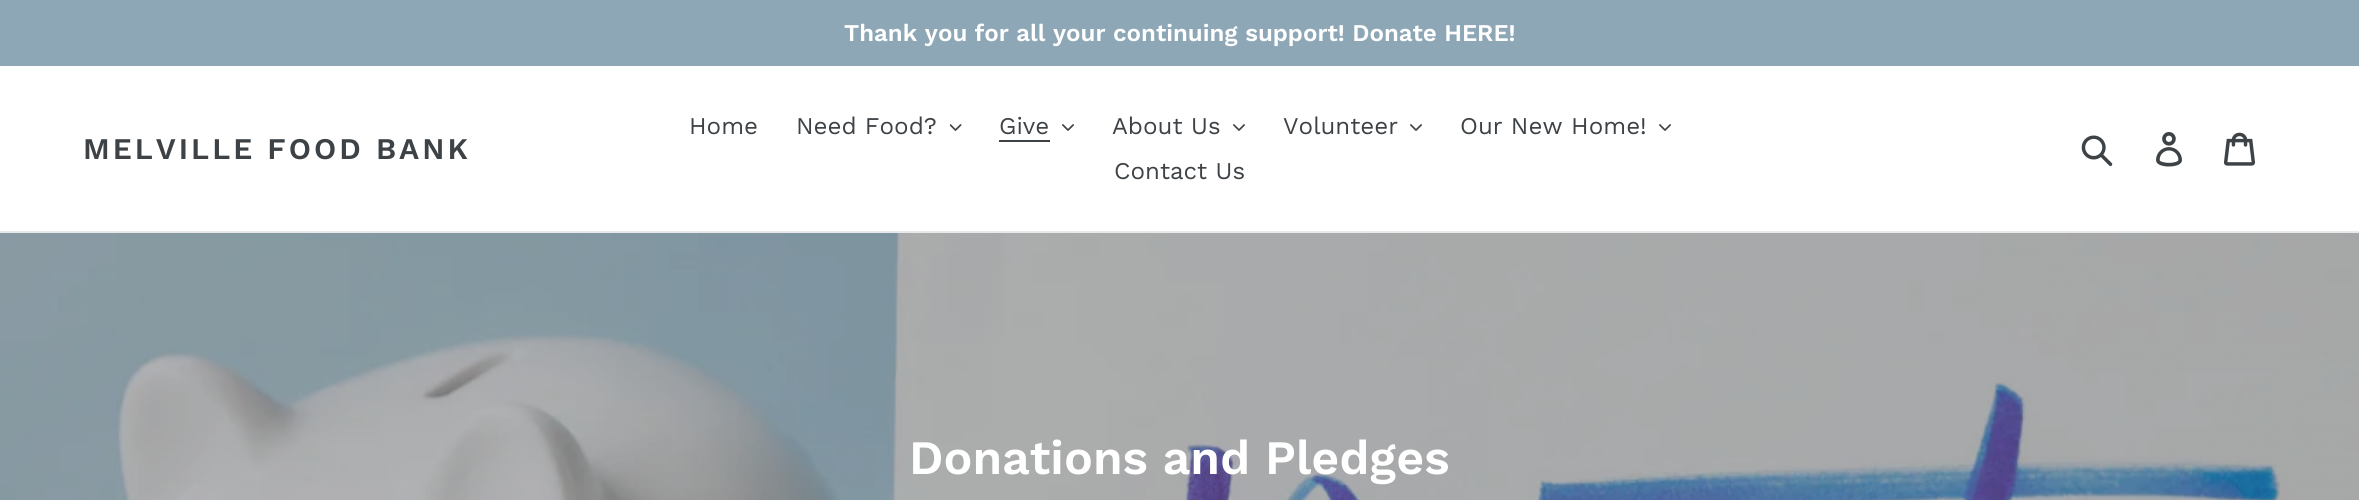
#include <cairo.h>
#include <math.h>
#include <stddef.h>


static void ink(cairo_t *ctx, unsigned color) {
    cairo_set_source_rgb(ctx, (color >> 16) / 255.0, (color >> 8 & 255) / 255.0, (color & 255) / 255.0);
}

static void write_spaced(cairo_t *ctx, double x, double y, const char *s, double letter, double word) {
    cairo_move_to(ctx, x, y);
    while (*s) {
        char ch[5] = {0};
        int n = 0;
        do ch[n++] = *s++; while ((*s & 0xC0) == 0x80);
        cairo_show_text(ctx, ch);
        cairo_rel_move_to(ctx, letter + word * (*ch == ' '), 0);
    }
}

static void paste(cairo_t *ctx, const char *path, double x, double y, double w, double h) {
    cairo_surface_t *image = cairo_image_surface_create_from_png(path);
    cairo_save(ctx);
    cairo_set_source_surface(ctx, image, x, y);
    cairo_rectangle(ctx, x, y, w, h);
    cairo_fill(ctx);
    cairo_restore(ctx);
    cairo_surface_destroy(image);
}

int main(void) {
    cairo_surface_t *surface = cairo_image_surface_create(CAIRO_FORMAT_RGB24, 2359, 500);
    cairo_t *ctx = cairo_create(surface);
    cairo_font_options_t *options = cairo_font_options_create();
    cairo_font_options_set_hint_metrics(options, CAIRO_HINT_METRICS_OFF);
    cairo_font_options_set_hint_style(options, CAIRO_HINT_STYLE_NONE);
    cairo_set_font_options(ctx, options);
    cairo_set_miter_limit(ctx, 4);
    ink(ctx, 0xFFFFFF);
    cairo_paint(ctx);
    ink(ctx, 0x8DA7B6);
    cairo_rectangle(ctx, 0, 0, 2359, 66);
    cairo_fill(ctx);
    cairo_select_font_face(ctx, "Work Sans SemiBold", CAIRO_FONT_SLANT_NORMAL, CAIRO_FONT_WEIGHT_NORMAL);
    cairo_set_font_size(ctx, 24);
    ink(ctx, 0xFFFFFF);
    cairo_move_to(ctx, 844, 41);
    cairo_show_text(ctx, "Thank you for all your continuing support! Donate HERE!");
    ink(ctx, 0xE8E9EB);
    cairo_rectangle(ctx, 0, 231, 2359, 2);
    cairo_fill(ctx);
    cairo_set_font_size(ctx, 30);
    ink(ctx, 0x3D4246);
    write_spaced(ctx, 83, 159, "MELVILLE FOOD BANK", 3, 0);
    cairo_select_font_face(ctx, "Work Sans", CAIRO_FONT_SLANT_NORMAL, CAIRO_FONT_WEIGHT_NORMAL);
    cairo_set_font_size(ctx, 24);
    cairo_move_to(ctx, 689, 134);
    cairo_show_text(ctx, "Home");
    cairo_move_to(ctx, 796, 134);
    cairo_show_text(ctx, "Need Food?");
    paste(ctx, "media/1.png", 950, 124, 12, 7);
    cairo_move_to(ctx, 999, 134);
    cairo_show_text(ctx, "Give");
    cairo_rectangle(ctx, 999, 140, 51, 2);
    cairo_fill(ctx);
    paste(ctx, "media/2.png", 1062, 124, 12, 7);
    cairo_move_to(ctx, 1112, 134);
    cairo_show_text(ctx, "About Us");
    paste(ctx, "media/2.png", 1233, 124, 12, 7);
    cairo_move_to(ctx, 1283, 134);
    cairo_show_text(ctx, "Volunteer");
    paste(ctx, "media/2.png", 1410, 124, 12, 7);
    cairo_move_to(ctx, 1460, 134);
    cairo_show_text(ctx, "Our New Home!");
    paste(ctx, "media/2.png", 1659, 124, 12, 7);
    cairo_move_to(ctx, 1114, 179);
    cairo_show_text(ctx, "Contact Us");
    paste(ctx, "media/3.png", 2081, 135, 32, 32);
    paste(ctx, "media/4.png", 2156, 132, 26, 35);
    paste(ctx, "media/5.png", 2223, 132, 32, 34);
    paste(ctx, "media/6.png", 0, 233, 2359, 267);
    cairo_select_font_face(ctx, "Work Sans SemiBold", CAIRO_FONT_SLANT_NORMAL, CAIRO_FONT_WEIGHT_NORMAL);
    cairo_set_font_size(ctx, 48);
    ink(ctx, 0xFFFFFF);
    cairo_move_to(ctx, 909, 474);
    cairo_show_text(ctx, "Donations and Pledges");
    cairo_surface_write_to_png(surface, "image.png");
    cairo_font_options_destroy(options);
    cairo_destroy(ctx);
    cairo_surface_destroy(surface);
    return 0;
}
